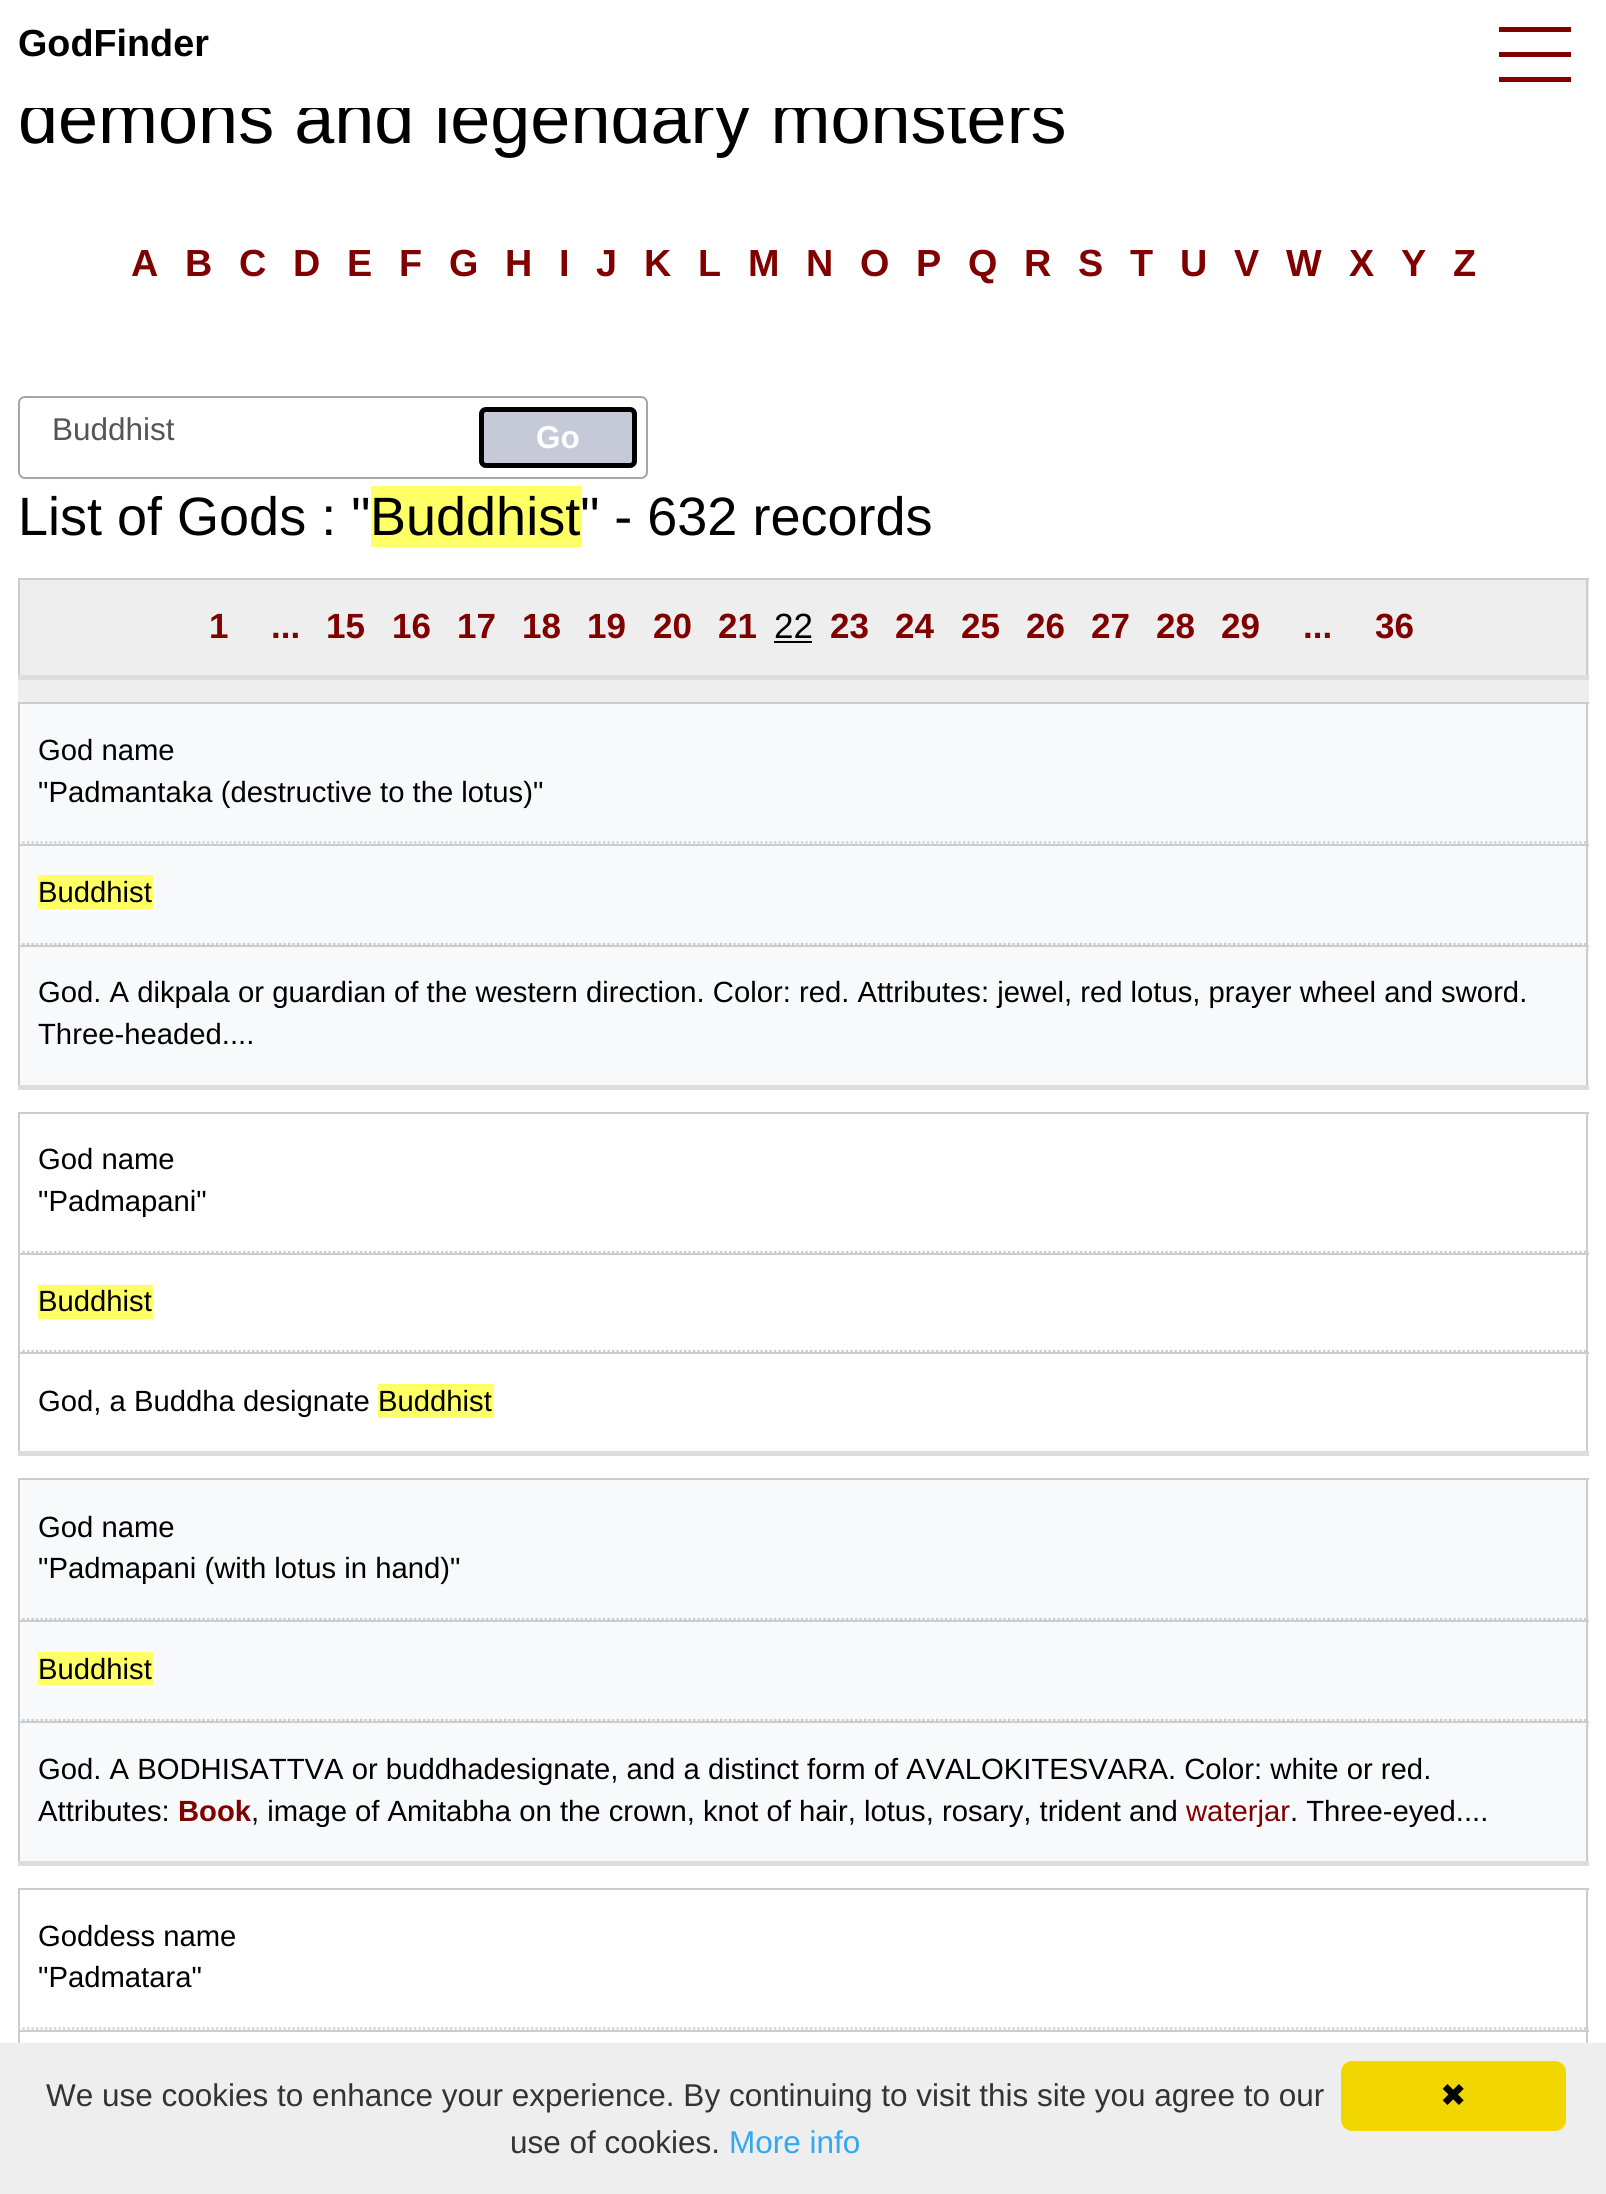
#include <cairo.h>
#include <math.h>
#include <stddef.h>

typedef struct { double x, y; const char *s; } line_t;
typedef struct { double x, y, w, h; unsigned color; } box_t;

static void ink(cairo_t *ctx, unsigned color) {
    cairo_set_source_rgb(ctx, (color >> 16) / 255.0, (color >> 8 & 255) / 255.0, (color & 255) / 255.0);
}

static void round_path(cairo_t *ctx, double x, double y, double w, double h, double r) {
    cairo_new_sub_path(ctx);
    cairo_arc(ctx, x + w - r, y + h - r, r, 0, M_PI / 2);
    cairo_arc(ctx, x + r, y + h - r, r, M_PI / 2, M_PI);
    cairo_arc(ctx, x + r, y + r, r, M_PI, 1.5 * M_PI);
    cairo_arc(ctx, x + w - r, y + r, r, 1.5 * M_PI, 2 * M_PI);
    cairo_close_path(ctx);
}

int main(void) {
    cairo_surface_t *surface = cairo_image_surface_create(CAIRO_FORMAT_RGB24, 1606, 2194);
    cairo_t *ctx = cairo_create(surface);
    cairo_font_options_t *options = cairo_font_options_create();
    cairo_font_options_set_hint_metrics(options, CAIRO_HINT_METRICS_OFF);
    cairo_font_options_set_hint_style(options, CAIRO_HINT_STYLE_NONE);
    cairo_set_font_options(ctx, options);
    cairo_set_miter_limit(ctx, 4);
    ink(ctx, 0xFFFFFF);
    cairo_paint(ctx);
    cairo_select_font_face(ctx, "Liberation Sans", CAIRO_FONT_SLANT_NORMAL, CAIRO_FONT_WEIGHT_NORMAL);
    cairo_set_font_size(ctx, 72);
    ink(ctx, 0x000000);
    cairo_move_to(ctx, 18, 143);
    cairo_show_text(ctx, "demons and legendary monsters");
    ink(ctx, 0xFFFFFF);
    cairo_rectangle(ctx, 25, 90, 1036, 18);
    cairo_fill(ctx);
    cairo_select_font_face(ctx, "Liberation Sans", CAIRO_FONT_SLANT_NORMAL, CAIRO_FONT_WEIGHT_BOLD);
    cairo_set_font_size(ctx, 37.75);
    ink(ctx, 0x000000);
    cairo_move_to(ctx, 18, 56);
    cairo_show_text(ctx, "GodFinder");
    {
        static const box_t items[] = {
            {1499, 77, 72, 5, 0x800000},
            {1499, 27, 72, 5, 0x800000},
            {1499, 52, 72, 5, 0x800000},
        };
        for (size_t i = 0; i < sizeof items / sizeof *items; i++) {
            ink(ctx, items[i].color);
            cairo_rectangle(ctx, items[i].x, items[i].y, items[i].w, items[i].h);
            cairo_fill(ctx);
        }
    }
    {
        static const line_t items[] = {
            {131, 276, "A"},
            {185, 276, "B"},
            {239, 276, "C"},
            {293, 276, "D"},
            {347, 276, "E"},
            {399, 276, "F"},
            {449, 276, "G"},
            {505, 276, "H"},
            {559, 276, "I"},
            {596, 276, "J"},
            {644, 276, "K"},
            {698, 276, "L"},
            {748, 276, "M"},
            {806, 276, "N"},
            {860, 276, "O"},
            {916, 276, "P"},
            {968, 276, "Q"},
            {1024, 276, "R"},
            {1078, 276, "S"},
            {1130, 276, "T"},
            {1180, 276, "U"},
            {1234, 276, "V"},
            {1286, 276, "W"},
            {1349, 276, "X"},
            {1401, 276, "Y"},
            {1453, 276, "Z"},
        };
        for (size_t i = 0; i < sizeof items / sizeof *items; i++) {
            cairo_move_to(ctx, items[i].x, items[i].y);
            cairo_show_text(ctx, items[i].s);
        }
    }
    round_path(ctx, 19, 397, 628, 81, 6);
    ink(ctx, 0xA0A8AC);
    cairo_stroke(ctx);
    cairo_select_font_face(ctx, "Liberation Sans", CAIRO_FONT_SLANT_NORMAL, CAIRO_FONT_WEIGHT_NORMAL);
    cairo_set_font_size(ctx, 31.5);
    ink(ctx, 0x555555);
    cairo_move_to(ctx, 52, 440);
    cairo_show_text(ctx, "Buddhist");
    ink(ctx, 0xC6C9D8);
    round_path(ctx, 481.5, 409.5, 153, 56, 4.5);
    cairo_fill_preserve(ctx);
    ink(ctx, 0x000000);
    cairo_set_line_width(ctx, 5);
    cairo_stroke(ctx);
    cairo_select_font_face(ctx, "Liberation Sans", CAIRO_FONT_SLANT_NORMAL, CAIRO_FONT_WEIGHT_BOLD);
    ink(ctx, 0xFFFFFF);
    cairo_move_to(ctx, 536, 448);
    cairo_show_text(ctx, "Go");
    cairo_select_font_face(ctx, "Liberation Sans", CAIRO_FONT_SLANT_NORMAL, CAIRO_FONT_WEIGHT_NORMAL);
    cairo_set_font_size(ctx, 54);
    ink(ctx, 0x000000);
    cairo_move_to(ctx, 18, 535);
    cairo_show_text(ctx, "List of Gods : \"");
    ink(ctx, 0xFFFF66);
    cairo_rectangle(ctx, 371, 486, 210, 61);
    cairo_fill(ctx);
    ink(ctx, 0x000000);
    cairo_move_to(ctx, 370, 535);
    cairo_show_text(ctx, "Buddhist\" - 632 records");
    {
        static const box_t items[] = {
            {18, 580, 1571, 122, 0xEEEEEE},
            {18, 675, 1571, 5, 0xDDDDDD},
            {18, 578, 1571, 2, 0xCCCCCC},
            {1586, 578, 2, 97, 0xCCCCCC},
            {18, 578, 2, 97, 0xCCCCCC},
        };
        for (size_t i = 0; i < sizeof items / sizeof *items; i++) {
            ink(ctx, items[i].color);
            cairo_rectangle(ctx, items[i].x, items[i].y, items[i].w, items[i].h);
            cairo_fill(ctx);
        }
    }
    cairo_select_font_face(ctx, "Liberation Sans", CAIRO_FONT_SLANT_NORMAL, CAIRO_FONT_WEIGHT_BOLD);
    cairo_set_font_size(ctx, 35);
    ink(ctx, 0x800000);
    {
        static const line_t items[] = {
            {209, 638, "1"},
            {271, 638, "..."},
            {326, 638, "15"},
            {392, 638, "16"},
            {457, 638, "17"},
            {522, 638, "18"},
            {587, 638, "19"},
            {653, 638, "20"},
            {718, 638, "21"},
        };
        for (size_t i = 0; i < sizeof items / sizeof *items; i++) {
            cairo_move_to(ctx, items[i].x, items[i].y);
            cairo_show_text(ctx, items[i].s);
        }
    }
    cairo_select_font_face(ctx, "Liberation Sans", CAIRO_FONT_SLANT_NORMAL, CAIRO_FONT_WEIGHT_NORMAL);
    ink(ctx, 0x000000);
    cairo_move_to(ctx, 774, 638);
    cairo_show_text(ctx, "22");
    cairo_rectangle(ctx, 774, 641, 38, 2);
    cairo_fill(ctx);
    cairo_select_font_face(ctx, "Liberation Sans", CAIRO_FONT_SLANT_NORMAL, CAIRO_FONT_WEIGHT_BOLD);
    ink(ctx, 0x800000);
    {
        static const line_t items[] = {
            {830, 638, "23"},
            {895, 638, "24"},
            {961, 638, "25"},
            {1026, 638, "26"},
            {1091, 638, "27"},
            {1156, 638, "28"},
            {1221, 638, "29"},
            {1303, 638, "..."},
            {1375, 638, "36"},
        };
        for (size_t i = 0; i < sizeof items / sizeof *items; i++) {
            cairo_move_to(ctx, items[i].x, items[i].y);
            cairo_show_text(ctx, items[i].s);
        }
    }
    {
        static const box_t items[] = {
            {20, 704, 1569, 381, 0xF8F9FA},
            {18, 1085, 1571, 5, 0xDDDDDD},
            {18, 702, 1571, 2, 0xCCCCCC},
            {1586, 702, 2, 142, 0xCCCCCC},
        };
        for (size_t i = 0; i < sizeof items / sizeof *items; i++) {
            ink(ctx, items[i].color);
            cairo_rectangle(ctx, items[i].x, items[i].y, items[i].w, items[i].h);
            cairo_fill(ctx);
        }
    }
    cairo_new_path(ctx);
    cairo_move_to(ctx, 18, 842.5);
    cairo_line_to(ctx, 1588.5, 842.5);
    cairo_set_line_width(ctx, 2.2);
    cairo_set_dash(ctx, (double[]){2.25, 2.25}, 2, 0);
    cairo_stroke(ctx);
    cairo_rectangle(ctx, 18, 702, 2, 142);
    cairo_fill(ctx);
    cairo_select_font_face(ctx, "Liberation Sans", CAIRO_FONT_SLANT_NORMAL, CAIRO_FONT_WEIGHT_NORMAL);
    cairo_set_font_size(ctx, 29.25);
    ink(ctx, 0x000000);
    cairo_move_to(ctx, 38, 760);
    cairo_show_text(ctx, "God name");
    cairo_move_to(ctx, 38, 802);
    cairo_show_text(ctx, "\"Padmantaka (destructive to the lotus)\"");
    ink(ctx, 0xCCCCCC);
    cairo_rectangle(ctx, 18, 844, 1571, 2);
    cairo_fill(ctx);
    cairo_rectangle(ctx, 1586, 844, 2, 101);
    cairo_fill(ctx);
    cairo_new_path(ctx);
    cairo_move_to(ctx, 18, 944);
    cairo_line_to(ctx, 1588.5, 944);
    cairo_stroke(ctx);
    cairo_rectangle(ctx, 18, 844, 2, 101);
    cairo_fill(ctx);
    ink(ctx, 0xFFFF66);
    cairo_rectangle(ctx, 38, 875, 115, 34);
    cairo_fill(ctx);
    ink(ctx, 0x000000);
    cairo_move_to(ctx, 38, 902);
    cairo_show_text(ctx, "Buddhist");
    {
        static const box_t items[] = {
            {18, 945, 1571, 2, 0xCCCCCC},
            {1586, 945, 2, 140, 0xCCCCCC},
            {18, 945, 2, 140, 0xCCCCCC},
        };
        for (size_t i = 0; i < sizeof items / sizeof *items; i++) {
            ink(ctx, items[i].color);
            cairo_rectangle(ctx, items[i].x, items[i].y, items[i].w, items[i].h);
            cairo_fill(ctx);
        }
    }
    ink(ctx, 0x000000);
    cairo_move_to(ctx, 38, 1002);
    cairo_show_text(ctx, "God. A dikpala or guardian of the western direction. Color: red. Attributes: jewel, red lotus, prayer wheel and sword.");
    cairo_move_to(ctx, 38, 1044);
    cairo_show_text(ctx, "Three-headed....");
    {
        static const box_t items[] = {
            {18, 1451, 1571, 5, 0xDDDDDD},
            {18, 1112, 1571, 2, 0xCCCCCC},
            {1586, 1112, 2, 141, 0xCCCCCC},
        };
        for (size_t i = 0; i < sizeof items / sizeof *items; i++) {
            ink(ctx, items[i].color);
            cairo_rectangle(ctx, items[i].x, items[i].y, items[i].w, items[i].h);
            cairo_fill(ctx);
        }
    }
    cairo_new_path(ctx);
    cairo_move_to(ctx, 18, 1252);
    cairo_line_to(ctx, 1588.5, 1252);
    cairo_stroke(ctx);
    cairo_rectangle(ctx, 18, 1112, 2, 141);
    cairo_fill(ctx);
    ink(ctx, 0x000000);
    cairo_move_to(ctx, 38, 1169);
    cairo_show_text(ctx, "God name");
    cairo_move_to(ctx, 38, 1211);
    cairo_show_text(ctx, "\"Padmapani\"");
    ink(ctx, 0xCCCCCC);
    cairo_rectangle(ctx, 18, 1253, 1571, 2);
    cairo_fill(ctx);
    cairo_rectangle(ctx, 1586, 1253, 2, 99);
    cairo_fill(ctx);
    cairo_new_path(ctx);
    cairo_move_to(ctx, 18, 1351);
    cairo_line_to(ctx, 1588.5, 1351);
    cairo_stroke(ctx);
    cairo_rectangle(ctx, 18, 1253, 2, 99);
    cairo_fill(ctx);
    ink(ctx, 0xFFFF66);
    cairo_rectangle(ctx, 38, 1285, 115, 34);
    cairo_fill(ctx);
    ink(ctx, 0x000000);
    cairo_move_to(ctx, 38, 1311);
    cairo_show_text(ctx, "Buddhist");
    {
        static const box_t items[] = {
            {18, 1352, 1571, 2, 0xCCCCCC},
            {1586, 1352, 2, 99, 0xCCCCCC},
            {18, 1352, 2, 99, 0xCCCCCC},
        };
        for (size_t i = 0; i < sizeof items / sizeof *items; i++) {
            ink(ctx, items[i].color);
            cairo_rectangle(ctx, items[i].x, items[i].y, items[i].w, items[i].h);
            cairo_fill(ctx);
        }
    }
    ink(ctx, 0x000000);
    cairo_move_to(ctx, 38, 1411);
    cairo_show_text(ctx, "God, a Buddha designate");
    ink(ctx, 0xFFFF66);
    cairo_rectangle(ctx, 378, 1384, 115, 34);
    cairo_fill(ctx);
    ink(ctx, 0x000000);
    cairo_move_to(ctx, 378, 1411);
    cairo_show_text(ctx, "Buddhist");
    {
        static const box_t items[] = {
            {20, 1480, 1569, 381, 0xF8F9FA},
            {18, 1861, 1571, 5, 0xDDDDDD},
            {18, 1478, 1571, 2, 0xCCCCCC},
            {1586, 1478, 2, 142, 0xCCCCCC},
        };
        for (size_t i = 0; i < sizeof items / sizeof *items; i++) {
            ink(ctx, items[i].color);
            cairo_rectangle(ctx, items[i].x, items[i].y, items[i].w, items[i].h);
            cairo_fill(ctx);
        }
    }
    cairo_new_path(ctx);
    cairo_move_to(ctx, 18, 1619);
    cairo_line_to(ctx, 1588.5, 1619);
    cairo_stroke(ctx);
    cairo_rectangle(ctx, 18, 1478, 2, 142);
    cairo_fill(ctx);
    ink(ctx, 0x000000);
    cairo_move_to(ctx, 38, 1537);
    cairo_show_text(ctx, "God name");
    cairo_move_to(ctx, 38, 1578);
    cairo_show_text(ctx, "\"Padmapani (with lotus in hand)\"");
    ink(ctx, 0xCCCCCC);
    cairo_rectangle(ctx, 18, 1620, 1571, 2);
    cairo_fill(ctx);
    cairo_rectangle(ctx, 1586, 1620, 2, 101);
    cairo_fill(ctx);
    cairo_new_path(ctx);
    cairo_move_to(ctx, 18, 1720);
    cairo_line_to(ctx, 1588.5, 1720);
    cairo_stroke(ctx);
    cairo_rectangle(ctx, 18, 1620, 2, 101);
    cairo_fill(ctx);
    ink(ctx, 0xFFFF66);
    cairo_rectangle(ctx, 38, 1652, 115, 33);
    cairo_fill(ctx);
    ink(ctx, 0x000000);
    cairo_move_to(ctx, 38, 1679);
    cairo_show_text(ctx, "Buddhist");
    {
        static const box_t items[] = {
            {18, 1721, 1571, 2, 0xCCCCCC},
            {1586, 1721, 2, 140, 0xCCCCCC},
            {18, 1721, 2, 140, 0xCCCCCC},
        };
        for (size_t i = 0; i < sizeof items / sizeof *items; i++) {
            ink(ctx, items[i].color);
            cairo_rectangle(ctx, items[i].x, items[i].y, items[i].w, items[i].h);
            cairo_fill(ctx);
        }
    }
    ink(ctx, 0x000000);
    cairo_move_to(ctx, 38, 1779);
    cairo_show_text(ctx, "God. A BODHISATTVA or buddhadesignate, and a distinct form of AVALOKITESVARA. Color: white or red.");
    cairo_move_to(ctx, 38, 1821);
    cairo_show_text(ctx, "Attributes:");
    cairo_select_font_face(ctx, "Liberation Sans", CAIRO_FONT_SLANT_NORMAL, CAIRO_FONT_WEIGHT_BOLD);
    ink(ctx, 0x800000);
    cairo_move_to(ctx, 178, 1821);
    cairo_show_text(ctx, "Book");
    cairo_select_font_face(ctx, "Liberation Sans", CAIRO_FONT_SLANT_NORMAL, CAIRO_FONT_WEIGHT_NORMAL);
    ink(ctx, 0x000000);
    cairo_move_to(ctx, 251, 1821);
    cairo_show_text(ctx, ", image of Amitabha on the crown, knot of hair, lotus, rosary, trident and");
    ink(ctx, 0x800000);
    cairo_move_to(ctx, 1186, 1821);
    cairo_show_text(ctx, "waterjar");
    ink(ctx, 0x000000);
    cairo_move_to(ctx, 1290, 1821);
    cairo_show_text(ctx, ". Three-eyed....");
    ink(ctx, 0xCCCCCC);
    cairo_rectangle(ctx, 18, 1888, 1571, 2);
    cairo_fill(ctx);
    cairo_rectangle(ctx, 1586, 1888, 2, 142);
    cairo_fill(ctx);
    cairo_new_path(ctx);
    cairo_move_to(ctx, 18, 2028.5);
    cairo_line_to(ctx, 1588.5, 2028.5);
    cairo_stroke(ctx);
    cairo_rectangle(ctx, 18, 1888, 2, 142);
    cairo_fill(ctx);
    ink(ctx, 0x000000);
    cairo_move_to(ctx, 38, 1946);
    cairo_show_text(ctx, "Goddess name");
    cairo_move_to(ctx, 38, 1987);
    cairo_show_text(ctx, "\"Padmatara\"");
    {
        static const box_t items[] = {
            {18, 2030, 1571, 2, 0xCCCCCC},
            {1586, 2030, 2, 13, 0xCCCCCC},
            {18, 2030, 2, 13, 0xCCCCCC},
            {0, 2043, 1606, 151, 0xEEEEEE},
        };
        for (size_t i = 0; i < sizeof items / sizeof *items; i++) {
            ink(ctx, items[i].color);
            cairo_rectangle(ctx, items[i].x, items[i].y, items[i].w, items[i].h);
            cairo_fill(ctx);
        }
    }
    cairo_set_font_size(ctx, 31.5);
    ink(ctx, 0x333333);
    cairo_move_to(ctx, 46, 2106);
    cairo_show_text(ctx, "We use cookies to enhance your experience. By continuing to visit this site you agree to our");
    cairo_move_to(ctx, 510, 2153);
    cairo_show_text(ctx, "use of cookies.");
    ink(ctx, 0x31A8F0);
    cairo_move_to(ctx, 729, 2153);
    cairo_show_text(ctx, "More info");
    ink(ctx, 0xF1D600);
    round_path(ctx, 1341, 2061, 225, 70, 11);
    cairo_fill(ctx);
    cairo_select_font_face(ctx, "DejaVu Sans", CAIRO_FONT_SLANT_NORMAL, CAIRO_FONT_WEIGHT_NORMAL);
    ink(ctx, 0x000000);
    cairo_move_to(ctx, 1440, 2106);
    cairo_show_text(ctx, "✖");
    cairo_surface_write_to_png(surface, "image.png");
    cairo_font_options_destroy(options);
    cairo_destroy(ctx);
    cairo_surface_destroy(surface);
    return 0;
}
